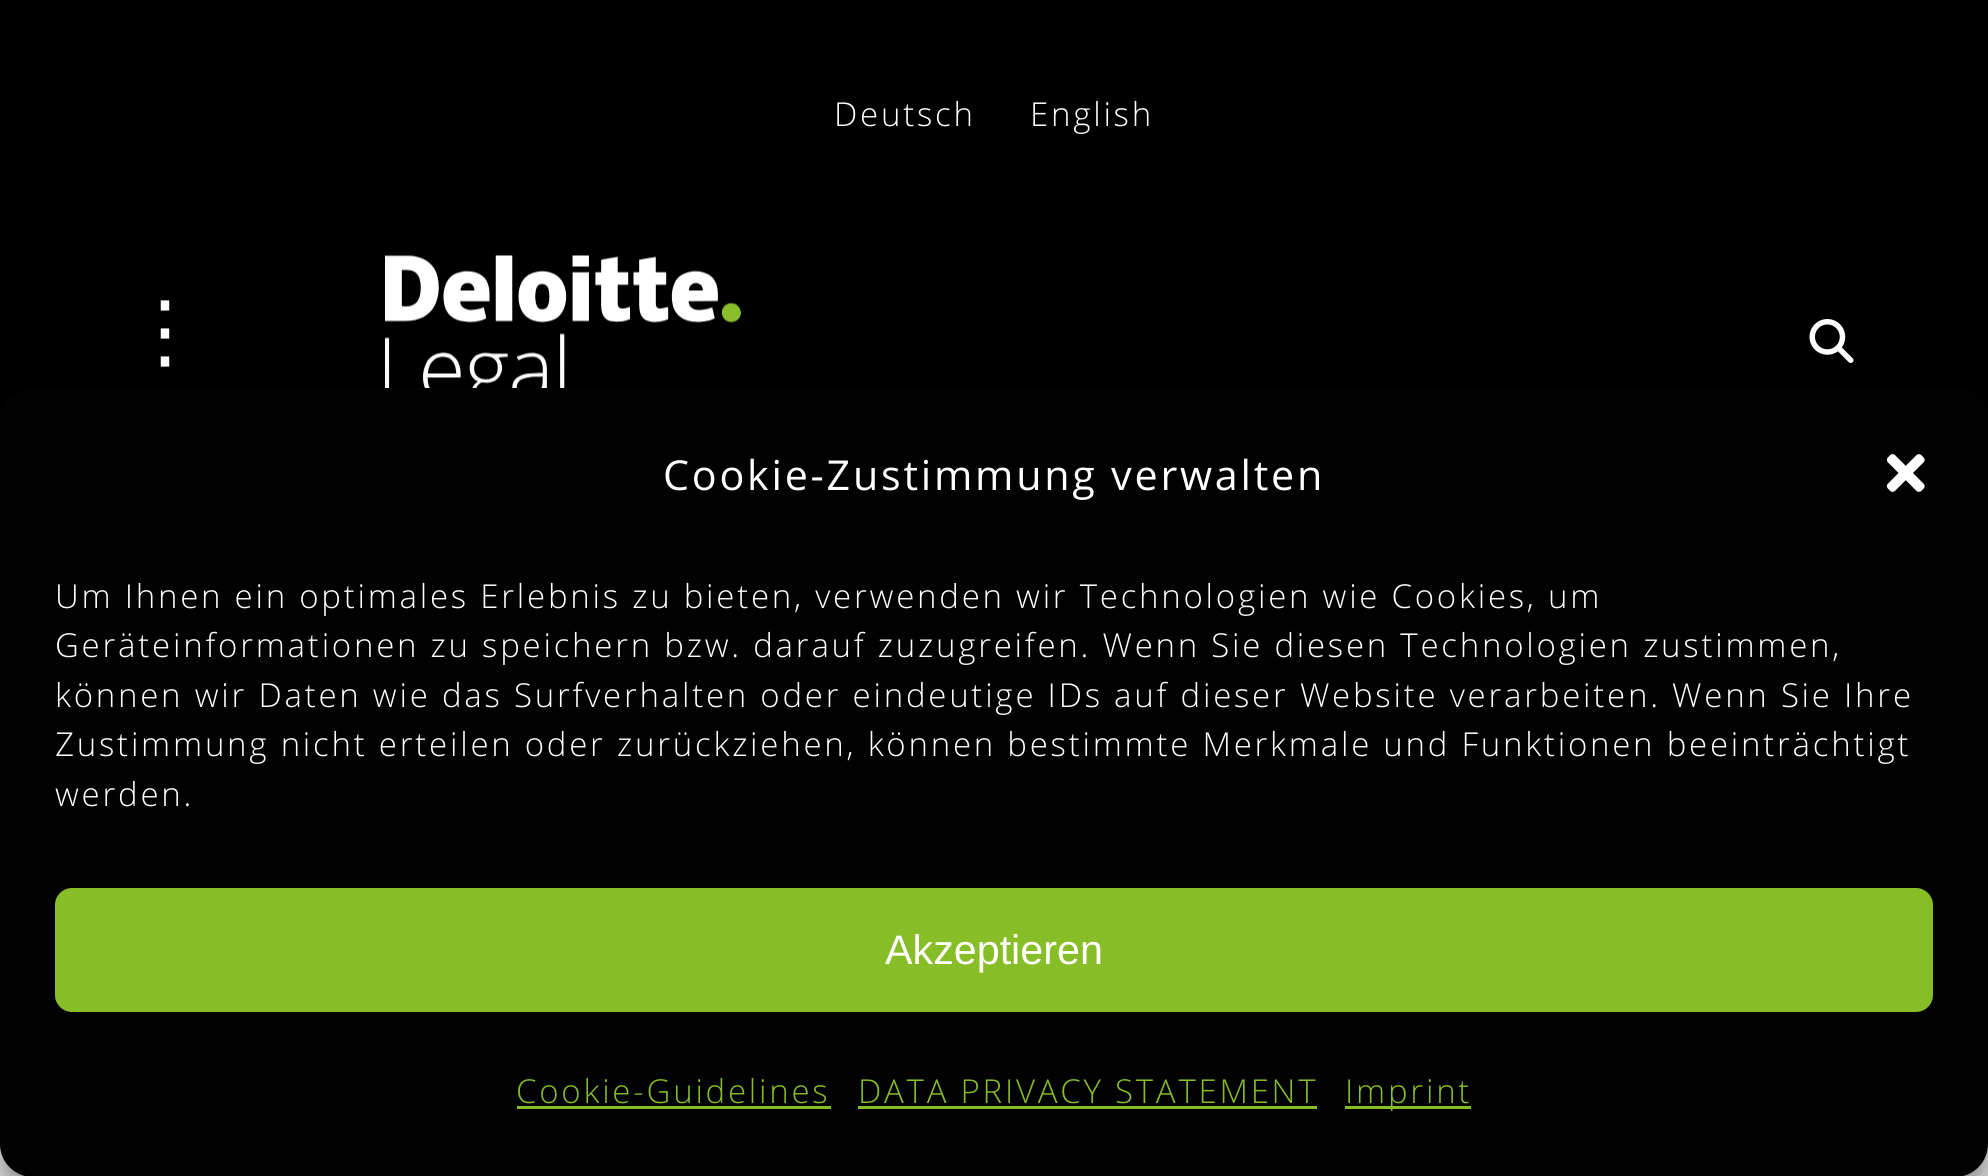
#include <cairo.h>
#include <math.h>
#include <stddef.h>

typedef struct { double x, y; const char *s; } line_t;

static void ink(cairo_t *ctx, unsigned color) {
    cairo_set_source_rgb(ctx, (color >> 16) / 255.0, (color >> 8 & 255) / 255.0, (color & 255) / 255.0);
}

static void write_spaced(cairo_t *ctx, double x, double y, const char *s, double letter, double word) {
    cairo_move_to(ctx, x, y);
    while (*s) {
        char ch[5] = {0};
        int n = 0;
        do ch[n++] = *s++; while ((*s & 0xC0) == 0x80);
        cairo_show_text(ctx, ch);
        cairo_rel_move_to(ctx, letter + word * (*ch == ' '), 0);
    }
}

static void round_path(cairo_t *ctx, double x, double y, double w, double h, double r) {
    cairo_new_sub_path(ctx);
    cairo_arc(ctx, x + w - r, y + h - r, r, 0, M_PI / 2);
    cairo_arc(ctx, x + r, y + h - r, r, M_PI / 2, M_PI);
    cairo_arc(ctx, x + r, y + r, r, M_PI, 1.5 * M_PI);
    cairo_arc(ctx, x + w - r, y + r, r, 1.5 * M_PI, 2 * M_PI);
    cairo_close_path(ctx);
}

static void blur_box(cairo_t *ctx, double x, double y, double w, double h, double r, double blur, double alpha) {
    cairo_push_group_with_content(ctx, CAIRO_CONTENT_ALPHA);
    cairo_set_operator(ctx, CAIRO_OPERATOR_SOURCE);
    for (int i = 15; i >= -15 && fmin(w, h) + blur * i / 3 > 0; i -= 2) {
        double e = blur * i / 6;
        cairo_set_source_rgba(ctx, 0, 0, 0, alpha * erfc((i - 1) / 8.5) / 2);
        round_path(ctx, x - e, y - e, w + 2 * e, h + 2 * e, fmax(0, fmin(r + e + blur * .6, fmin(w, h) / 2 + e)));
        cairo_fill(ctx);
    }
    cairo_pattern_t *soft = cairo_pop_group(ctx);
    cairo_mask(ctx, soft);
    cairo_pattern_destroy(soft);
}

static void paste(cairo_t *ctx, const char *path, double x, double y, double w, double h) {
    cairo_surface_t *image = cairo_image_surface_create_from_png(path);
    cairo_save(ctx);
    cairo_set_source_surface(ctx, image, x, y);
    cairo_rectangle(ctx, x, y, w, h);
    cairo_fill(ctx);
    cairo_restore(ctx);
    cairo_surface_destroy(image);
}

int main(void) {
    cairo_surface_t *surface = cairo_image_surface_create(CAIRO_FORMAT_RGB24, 1988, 1176);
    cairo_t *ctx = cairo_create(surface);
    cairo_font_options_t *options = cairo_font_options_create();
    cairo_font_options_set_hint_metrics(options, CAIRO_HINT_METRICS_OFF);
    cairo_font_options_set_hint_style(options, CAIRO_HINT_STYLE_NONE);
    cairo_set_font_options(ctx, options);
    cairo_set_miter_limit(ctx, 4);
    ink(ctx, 0xE8EAE9);
    cairo_paint(ctx);
    ink(ctx, 0x000000);
    cairo_rectangle(ctx, 0, 0, 1988, 421);
    cairo_fill(ctx);
    cairo_select_font_face(ctx, "Open Sans Light", CAIRO_FONT_SLANT_NORMAL, CAIRO_FONT_WEIGHT_NORMAL);
    cairo_set_font_size(ctx, 33);
    ink(ctx, 0xFFFFFF);
    write_spaced(ctx, 834, 126, "Deutsch", 2.75, 0);
    write_spaced(ctx, 1030, 126, "English", 2.75, 0);
    cairo_select_font_face(ctx, "DejaVu Sans", CAIRO_FONT_SLANT_NORMAL, CAIRO_FONT_WEIGHT_NORMAL);
    cairo_set_font_size(ctx, 82);
    write_spaced(ctx, 124, 359, "⋮", 2.75, 0);
    paste(ctx, "media/1.png", 385, 255, 356, 133);
    paste(ctx, "media/2.png", 1809, 319, 45, 44);
    ink(ctx, 0x000000);
    blur_box(ctx, 0, 404, 1988, 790, 33, 8, 0.23);
    blur_box(ctx, 0, 415, 1988, 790, 33, 27.5, 0.19);
    ink(ctx, 0x020202);
    round_path(ctx, 0, 388, 1988, 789, 33);
    cairo_fill(ctx);
    cairo_select_font_face(ctx, "Open Sans", CAIRO_FONT_SLANT_NORMAL, CAIRO_FONT_WEIGHT_NORMAL);
    cairo_set_font_size(ctx, 41.25);
    ink(ctx, 0xFFFFFF);
    write_spaced(ctx, 663, 490, "Cookie-Zustimmung verwalten", 2.75, 0);
    paste(ctx, "media/3.png", 1886, 454, 39, 38);
    cairo_select_font_face(ctx, "Open Sans Light", CAIRO_FONT_SLANT_NORMAL, CAIRO_FONT_WEIGHT_NORMAL);
    cairo_set_font_size(ctx, 33);
    {
        static const line_t items[] = {
            {55, 608, "Um Ihnen ein optimales Erlebnis zu bieten, verwenden wir Technologien wie Cookies, um"},
            {55, 657, "Geräteinformationen zu speichern bzw. darauf zuzugreifen. Wenn Sie diesen Technologien zustimmen,"},
            {55, 707, "können wir Daten wie das Surfverhalten oder eindeutige IDs auf dieser Website verarbeiten. Wenn Sie Ihre"},
            {55, 756, "Zustimmung nicht erteilen oder zurückziehen, können bestimmte Merkmale und Funktionen beeinträchtigt"},
            {55, 806, "werden."},
        };
        for (size_t i = 0; i < sizeof items / sizeof *items; i++) {
            write_spaced(ctx, items[i].x, items[i].y, items[i].s, 2.75, 0);
        }
    }
    ink(ctx, 0x87BD27);
    round_path(ctx, 56.5, 889.5, 1875, 121, 15.5);
    cairo_fill_preserve(ctx);
    cairo_set_line_width(ctx, 3);
    cairo_stroke(ctx);
    cairo_select_font_face(ctx, "Liberation Sans", CAIRO_FONT_SLANT_NORMAL, CAIRO_FONT_WEIGHT_NORMAL);
    cairo_set_font_size(ctx, 41.25);
    ink(ctx, 0xFFFFFF);
    cairo_move_to(ctx, 885, 964);
    cairo_show_text(ctx, "Akzeptieren");
    cairo_select_font_face(ctx, "Open Sans Light", CAIRO_FONT_SLANT_NORMAL, CAIRO_FONT_WEIGHT_NORMAL);
    cairo_set_font_size(ctx, 33);
    ink(ctx, 0x87BD27);
    write_spaced(ctx, 516, 1103, "Cookie-Guidelines", 2.75, 0);
    cairo_rectangle(ctx, 517, 1106, 314, 3);
    cairo_fill(ctx);
    write_spaced(ctx, 858, 1103, "DATA PRIVACY STATEMENT", 2.75, 0);
    cairo_rectangle(ctx, 858, 1106, 459, 3);
    cairo_fill(ctx);
    cairo_rectangle(ctx, 1345, 1106, 126, 3);
    cairo_fill(ctx);
    write_spaced(ctx, 1345, 1103, "Imprint", 2.75, 0);
    cairo_surface_write_to_png(surface, "image.png");
    cairo_font_options_destroy(options);
    cairo_destroy(ctx);
    cairo_surface_destroy(surface);
    return 0;
}
